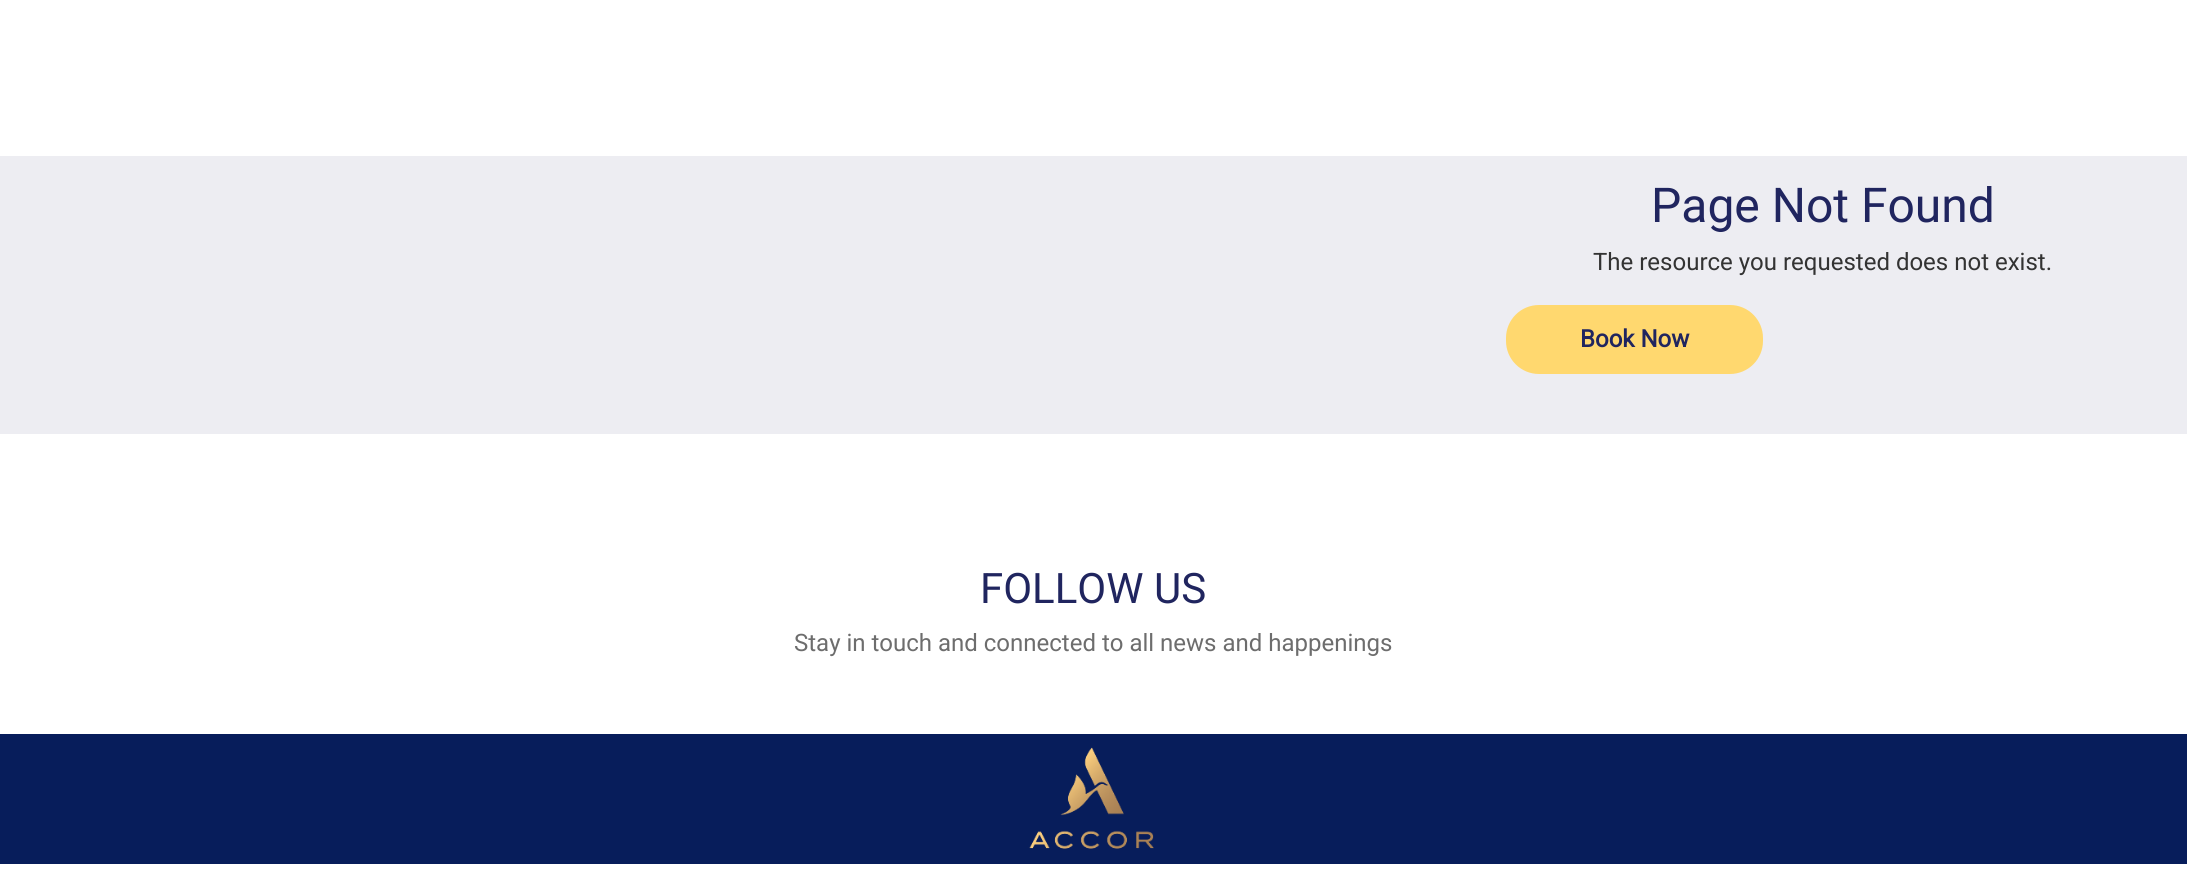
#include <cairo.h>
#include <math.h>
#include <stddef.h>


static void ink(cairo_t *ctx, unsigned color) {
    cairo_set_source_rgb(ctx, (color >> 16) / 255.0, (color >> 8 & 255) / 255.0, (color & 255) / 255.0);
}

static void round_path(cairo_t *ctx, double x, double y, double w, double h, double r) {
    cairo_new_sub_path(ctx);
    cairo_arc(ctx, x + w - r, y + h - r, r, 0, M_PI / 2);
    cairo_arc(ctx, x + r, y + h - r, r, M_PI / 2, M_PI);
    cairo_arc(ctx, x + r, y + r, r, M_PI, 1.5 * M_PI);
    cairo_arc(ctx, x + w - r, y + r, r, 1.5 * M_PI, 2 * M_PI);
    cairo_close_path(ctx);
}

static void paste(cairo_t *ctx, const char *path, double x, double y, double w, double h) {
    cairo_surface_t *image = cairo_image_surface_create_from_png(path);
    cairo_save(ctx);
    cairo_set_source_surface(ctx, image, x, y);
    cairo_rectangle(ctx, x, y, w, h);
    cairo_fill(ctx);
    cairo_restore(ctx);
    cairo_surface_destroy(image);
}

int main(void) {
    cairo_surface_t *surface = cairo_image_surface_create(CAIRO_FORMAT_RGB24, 2187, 879);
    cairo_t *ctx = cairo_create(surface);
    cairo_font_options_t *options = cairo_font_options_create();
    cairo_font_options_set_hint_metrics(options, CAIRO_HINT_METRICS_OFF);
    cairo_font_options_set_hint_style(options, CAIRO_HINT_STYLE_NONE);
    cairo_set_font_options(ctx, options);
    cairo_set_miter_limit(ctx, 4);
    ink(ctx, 0xFFFFFF);
    cairo_paint(ctx);
    ink(ctx, 0xEDEDF2);
    cairo_rectangle(ctx, 0, 156, 2187, 278);
    cairo_fill(ctx);
    cairo_select_font_face(ctx, "Roboto", CAIRO_FONT_SLANT_NORMAL, CAIRO_FONT_WEIGHT_NORMAL);
    cairo_set_font_size(ctx, 48);
    ink(ctx, 0x20255F);
    cairo_move_to(ctx, 1651, 222);
    cairo_show_text(ctx, "Page Not Found");
    cairo_set_font_size(ctx, 24);
    ink(ctx, 0x333333);
    cairo_move_to(ctx, 1593, 270);
    cairo_show_text(ctx, "The resource you requested does not exist.");
    ink(ctx, 0xFFD86F);
    round_path(ctx, 1507, 306, 255, 67, 32);
    cairo_fill_preserve(ctx);
    cairo_stroke(ctx);
    cairo_select_font_face(ctx, "Roboto", CAIRO_FONT_SLANT_NORMAL, CAIRO_FONT_WEIGHT_BOLD);
    ink(ctx, 0x20255F);
    cairo_move_to(ctx, 1580, 347);
    cairo_show_text(ctx, "Book Now");
    cairo_select_font_face(ctx, "Roboto", CAIRO_FONT_SLANT_NORMAL, CAIRO_FONT_WEIGHT_NORMAL);
    cairo_set_font_size(ctx, 42);
    cairo_move_to(ctx, 980, 603);
    cairo_show_text(ctx, "FOLLOW US");
    cairo_set_font_size(ctx, 24);
    ink(ctx, 0x6D6D6D);
    cairo_move_to(ctx, 794, 651);
    cairo_show_text(ctx, "Stay in touch and connected to all news and happenings");
    ink(ctx, 0x071D5B);
    cairo_rectangle(ctx, 0, 734, 2187, 130);
    cairo_fill(ctx);
    paste(ctx, "media/1.png", 1029, 747, 125, 102);
    cairo_surface_write_to_png(surface, "image.png");
    cairo_font_options_destroy(options);
    cairo_destroy(ctx);
    cairo_surface_destroy(surface);
    return 0;
}
